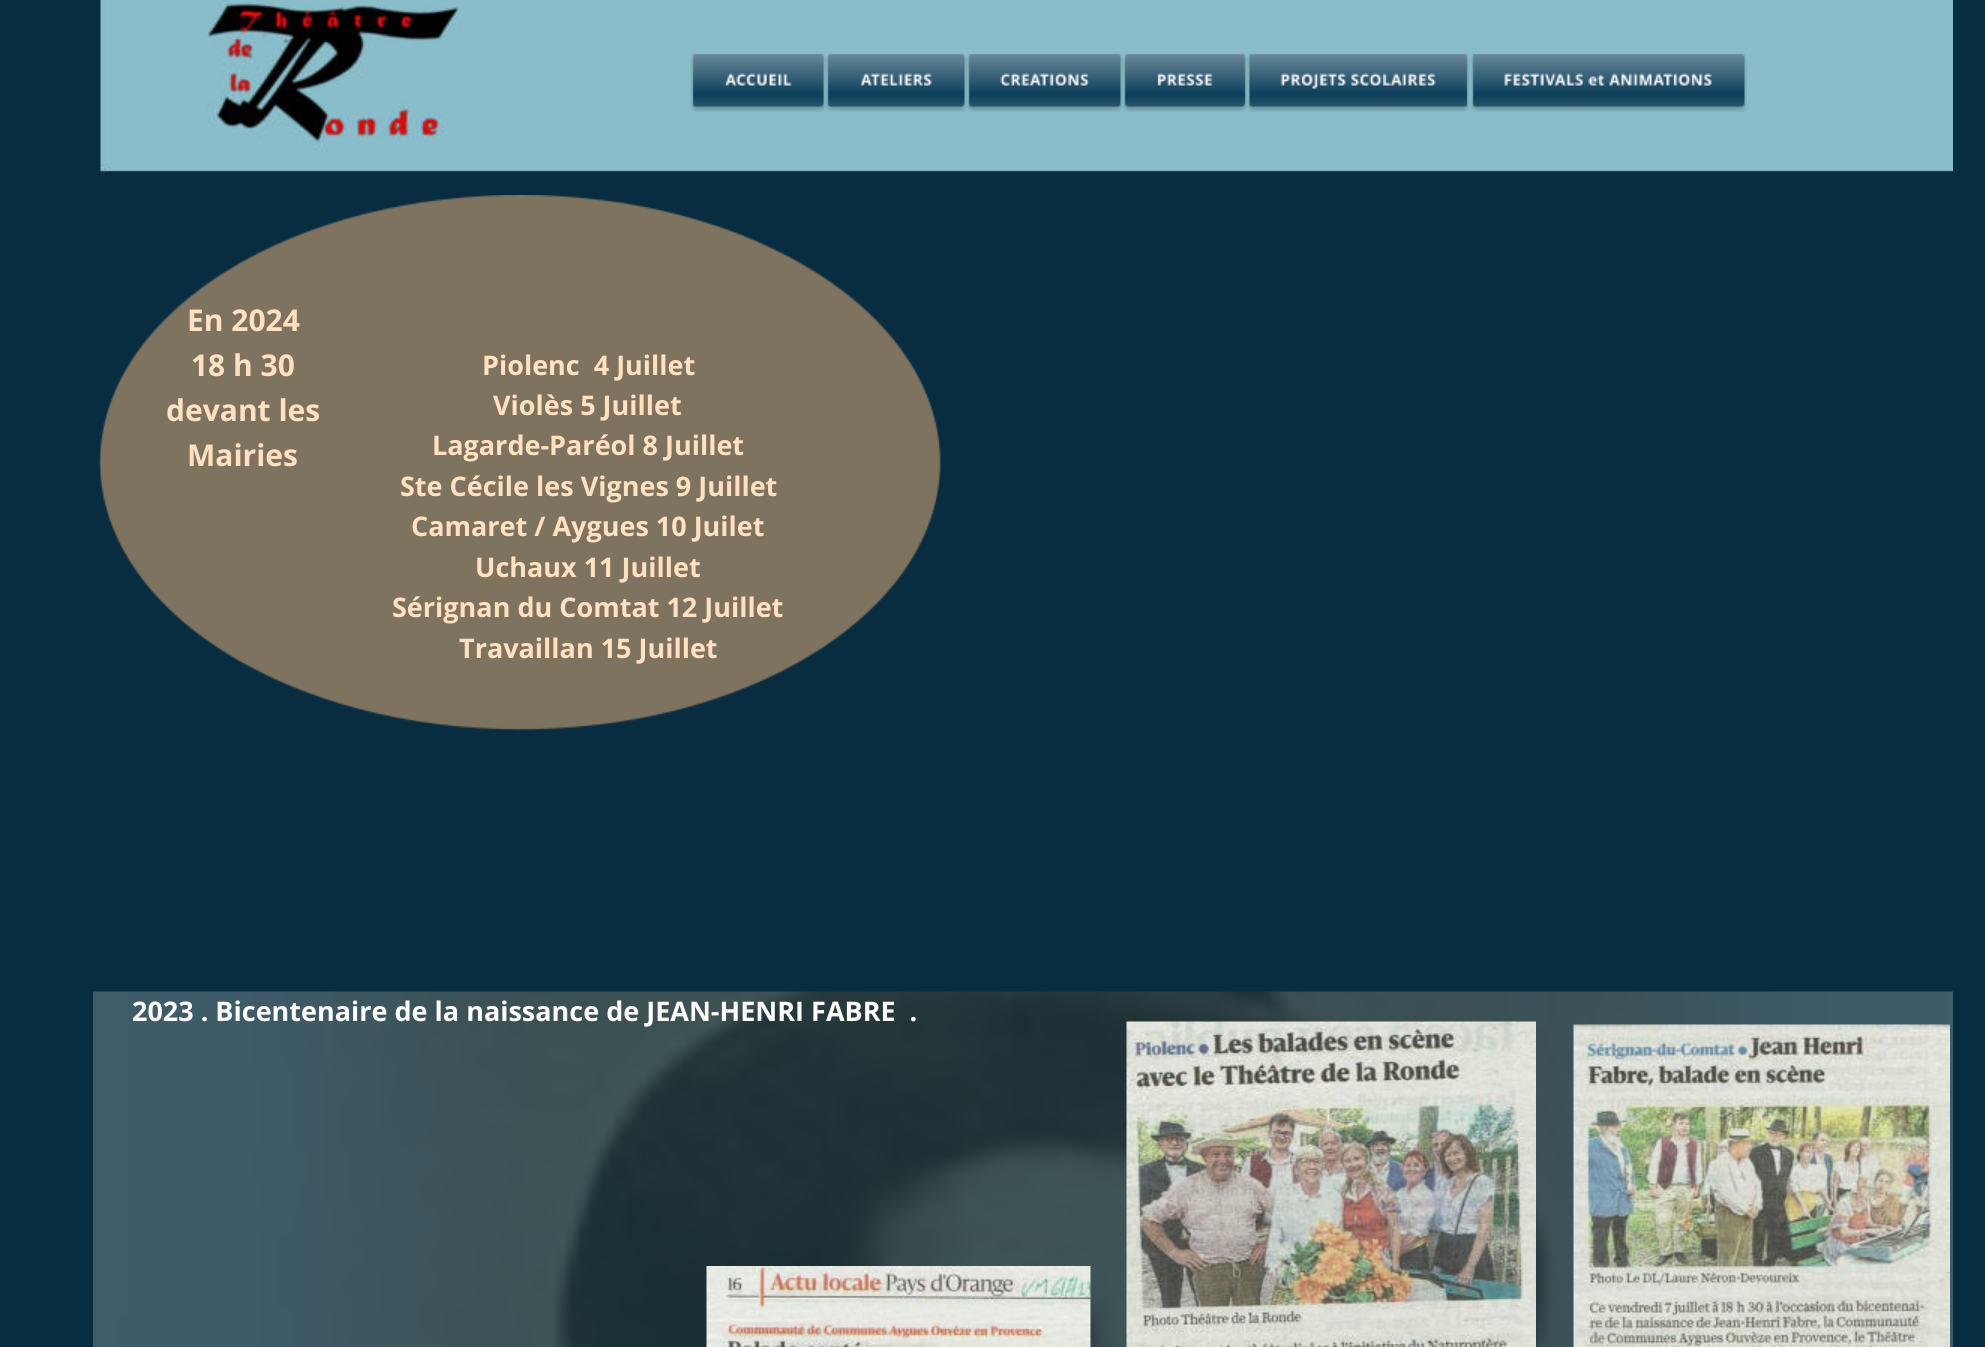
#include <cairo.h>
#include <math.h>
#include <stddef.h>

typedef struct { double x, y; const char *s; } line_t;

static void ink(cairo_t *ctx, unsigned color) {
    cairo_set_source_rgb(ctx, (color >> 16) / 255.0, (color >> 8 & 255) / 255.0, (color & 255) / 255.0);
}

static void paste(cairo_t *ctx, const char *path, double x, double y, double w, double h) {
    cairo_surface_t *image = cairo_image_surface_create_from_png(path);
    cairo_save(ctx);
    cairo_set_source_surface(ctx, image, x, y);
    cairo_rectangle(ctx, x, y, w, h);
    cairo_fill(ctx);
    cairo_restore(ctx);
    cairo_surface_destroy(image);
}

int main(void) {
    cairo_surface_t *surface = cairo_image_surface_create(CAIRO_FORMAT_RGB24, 1985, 1347);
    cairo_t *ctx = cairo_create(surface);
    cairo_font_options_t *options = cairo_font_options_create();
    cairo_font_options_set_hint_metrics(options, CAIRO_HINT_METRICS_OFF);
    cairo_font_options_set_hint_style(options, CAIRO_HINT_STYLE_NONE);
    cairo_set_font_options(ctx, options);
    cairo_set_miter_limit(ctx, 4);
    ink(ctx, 0x082D41);
    cairo_paint(ctx);
    paste(ctx, "media/7.png", 99, 0, 1854, 173);
    paste(ctx, "media/1.png", 690, 53, 136, 59);
    paste(ctx, "media/2.png", 825, 53, 142, 59);
    paste(ctx, "media/3.png", 966, 53, 157, 59);
    paste(ctx, "media/4.png", 1122, 53, 126, 59);
    paste(ctx, "media/5.png", 1247, 53, 223, 59);
    paste(ctx, "media/6.png", 1470, 53, 277, 59);
    cairo_select_font_face(ctx, "Open Sans", CAIRO_FONT_SLANT_NORMAL, CAIRO_FONT_WEIGHT_BOLD);
    cairo_set_font_size(ctx, 30);
    ink(ctx, 0xFFFFFF);
    {
        static const line_t items[] = {
            {187, 331, "En 2024"},
            {191, 376, "18 h 30"},
            {166, 421, "devant les"},
            {187, 466, "Mairies"},
        };
        for (size_t i = 0; i < sizeof items / sizeof *items; i++) {
            cairo_move_to(ctx, items[i].x, items[i].y);
            cairo_show_text(ctx, items[i].s);
        }
    }
    cairo_set_font_size(ctx, 27);
    {
        static const line_t items[] = {
            {482, 375, "Piolenc  4 Juillet"},
            {493, 415, "Violès 5 Juillet"},
            {432, 455, "Lagarde-Paréol 8 Juillet"},
            {400, 496, "Ste Cécile les Vignes 9 Juillet"},
            {411, 536, "Camaret / Aygues 10 Juilet"},
            {475, 577, "Uchaux 11 Juillet"},
            {392, 617, "Sérignan du Comtat 12 Juillet"},
            {459, 658, "Travaillan 15 Juillet"},
        };
        for (size_t i = 0; i < sizeof items / sizeof *items; i++) {
            cairo_move_to(ctx, items[i].x, items[i].y);
            cairo_show_text(ctx, items[i].s);
        }
    }
    paste(ctx, "media/8.png", 99, 195, 842, 536);
    paste(ctx, "media/9.png", 93, 991, 1860, 356);
    cairo_move_to(ctx, 132, 1021);
    cairo_show_text(ctx, "2023 . Bicentenaire de la naissance de JEAN-HENRI FABRE  .");
    paste(ctx, "media/10.png", 706, 1266, 385, 81);
    paste(ctx, "media/11.png", 1126, 1021, 410, 326);
    paste(ctx, "media/12.png", 1573, 1024, 377, 323);
    cairo_surface_write_to_png(surface, "image.png");
    cairo_font_options_destroy(options);
    cairo_destroy(ctx);
    cairo_surface_destroy(surface);
    return 0;
}
